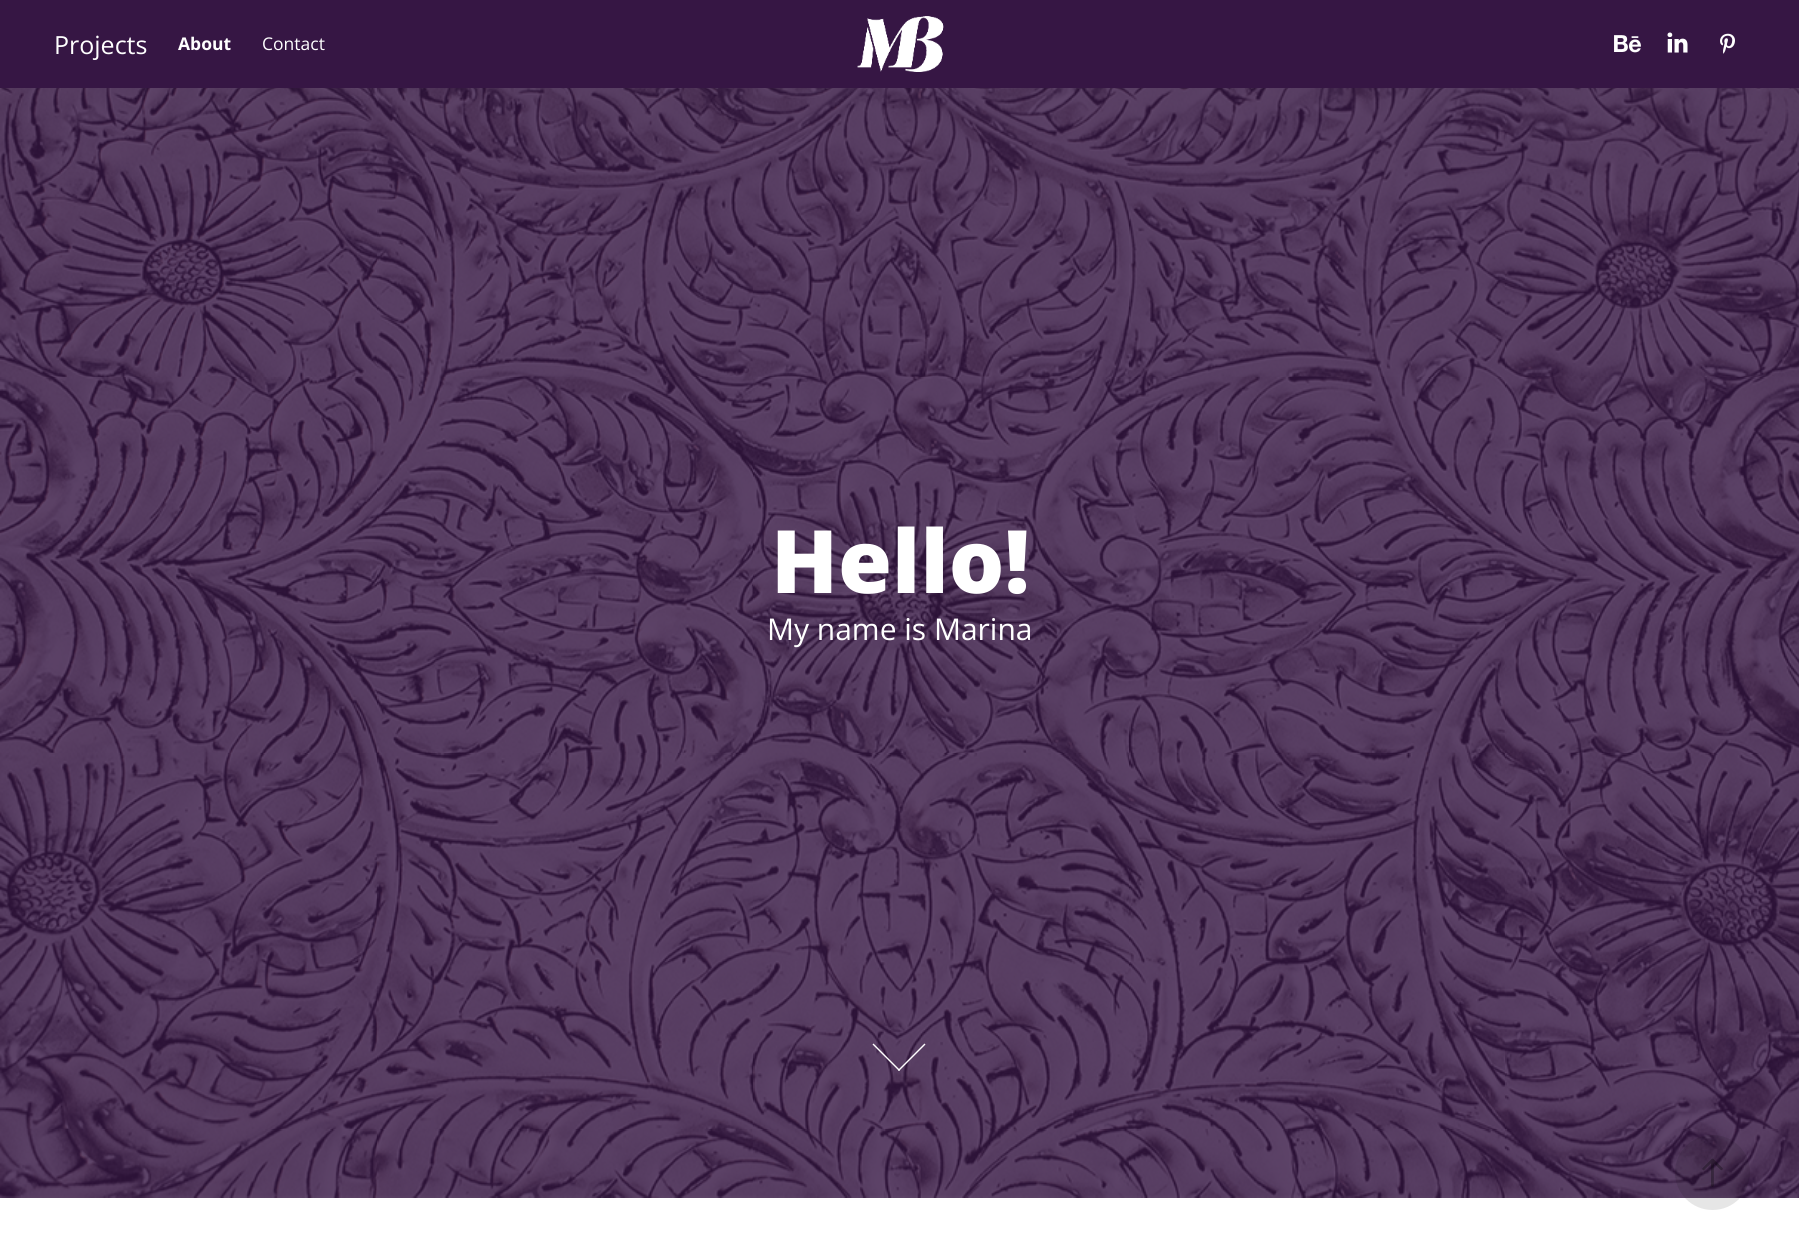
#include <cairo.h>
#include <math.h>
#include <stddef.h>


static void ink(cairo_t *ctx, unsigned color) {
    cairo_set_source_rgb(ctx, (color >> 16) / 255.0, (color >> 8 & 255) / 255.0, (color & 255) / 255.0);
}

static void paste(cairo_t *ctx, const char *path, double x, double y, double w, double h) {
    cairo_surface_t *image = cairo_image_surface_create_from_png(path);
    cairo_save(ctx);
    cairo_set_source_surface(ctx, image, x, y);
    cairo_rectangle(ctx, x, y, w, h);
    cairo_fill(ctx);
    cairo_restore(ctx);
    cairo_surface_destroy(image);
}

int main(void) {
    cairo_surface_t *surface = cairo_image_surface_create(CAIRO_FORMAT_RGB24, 1799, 1259);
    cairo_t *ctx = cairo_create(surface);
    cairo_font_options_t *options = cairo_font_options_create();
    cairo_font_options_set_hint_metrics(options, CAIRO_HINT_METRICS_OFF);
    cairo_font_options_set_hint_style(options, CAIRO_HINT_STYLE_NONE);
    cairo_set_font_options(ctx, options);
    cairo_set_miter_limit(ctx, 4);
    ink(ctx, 0xFFFFFF);
    cairo_paint(ctx);
    ink(ctx, 0x361644);
    cairo_rectangle(ctx, 0, 0, 1799, 88);
    cairo_fill(ctx);
    cairo_select_font_face(ctx, "Open Sans", CAIRO_FONT_SLANT_NORMAL, CAIRO_FONT_WEIGHT_NORMAL);
    cairo_set_font_size(ctx, 25);
    ink(ctx, 0xFFFFFF);
    cairo_move_to(ctx, 54, 54);
    cairo_show_text(ctx, "Projects");
    cairo_select_font_face(ctx, "Open Sans", CAIRO_FONT_SLANT_NORMAL, CAIRO_FONT_WEIGHT_BOLD);
    cairo_set_font_size(ctx, 17.5);
    cairo_move_to(ctx, 178, 50);
    cairo_show_text(ctx, "About");
    cairo_select_font_face(ctx, "Open Sans", CAIRO_FONT_SLANT_NORMAL, CAIRO_FONT_WEIGHT_NORMAL);
    cairo_move_to(ctx, 262, 50);
    cairo_show_text(ctx, "Contact");
    paste(ctx, "media/1.png", 857, 16, 87, 56);
    paste(ctx, "media/2.png", 1614, 35, 27, 18);
    paste(ctx, "media/3.png", 1667, 32, 21, 21);
    paste(ctx, "media/4.png", 1720, 33, 15, 21);
    paste(ctx, "media/5.png", 0, 88, 1799, 1110);
    cairo_select_font_face(ctx, "Open Sans ExtraBold", CAIRO_FONT_SLANT_NORMAL, CAIRO_FONT_WEIGHT_NORMAL);
    cairo_set_font_size(ctx, 87.5);
    cairo_move_to(ctx, 771, 593);
    cairo_show_text(ctx, "Hello!");
    cairo_select_font_face(ctx, "Open Sans", CAIRO_FONT_SLANT_NORMAL, CAIRO_FONT_WEIGHT_NORMAL);
    cairo_set_font_size(ctx, 30);
    cairo_move_to(ctx, 767, 640);
    cairo_show_text(ctx, "My name is Marina");
    cairo_new_path(ctx);
    cairo_move_to(ctx, 924.5, 1043.5);
    cairo_line_to(ctx, 925.5, 1044.5);
    cairo_line_to(ctx, 899, 1071);
    cairo_line_to(ctx, 898, 1070);
    cairo_close_path(ctx);
    cairo_fill(ctx);
    cairo_new_path(ctx);
    cairo_move_to(ctx, 873.5, 1043.5);
    cairo_line_to(ctx, 900, 1070);
    cairo_line_to(ctx, 899, 1071);
    cairo_line_to(ctx, 872.5, 1044.5);
    cairo_close_path(ctx);
    cairo_fill(ctx);
    cairo_set_source_rgba(ctx, 0, 0, 0, 0.1);
    cairo_arc(ctx, 1712.5, 1172.5, 37.5, 0, 2 * M_PI);
    cairo_fill(ctx);
    paste(ctx, "media/6.png", 1702, 1158, 21, 29);
    cairo_surface_write_to_png(surface, "image.png");
    cairo_font_options_destroy(options);
    cairo_destroy(ctx);
    cairo_surface_destroy(surface);
    return 0;
}
